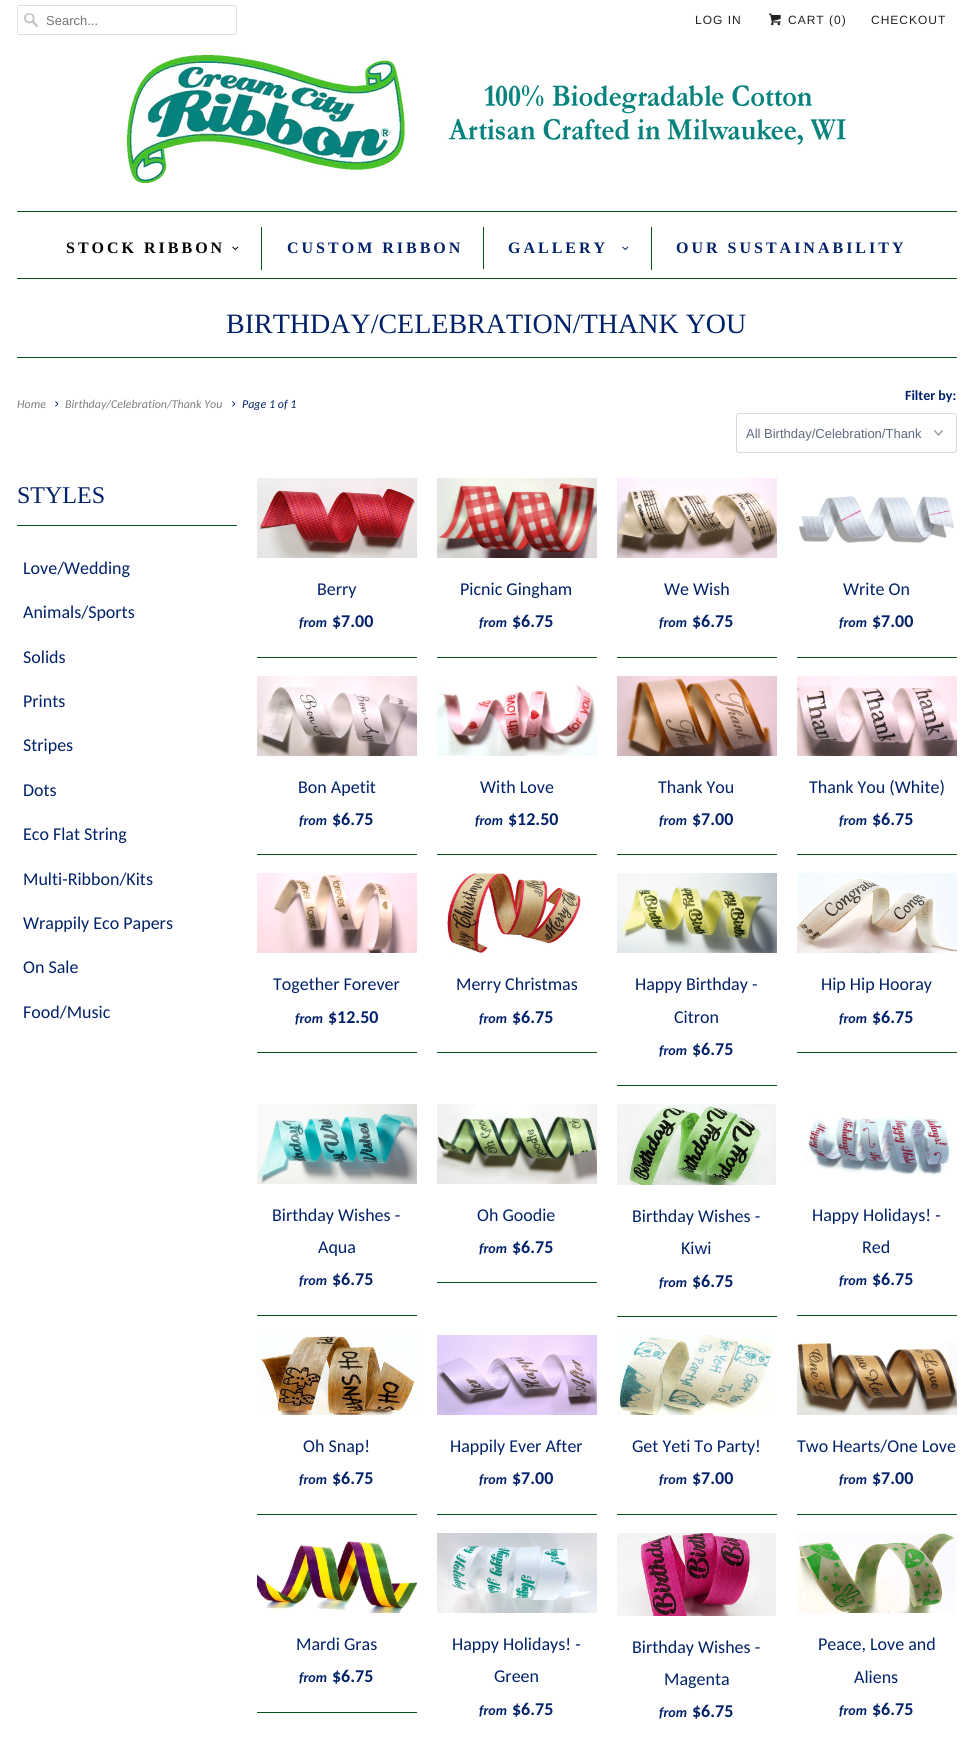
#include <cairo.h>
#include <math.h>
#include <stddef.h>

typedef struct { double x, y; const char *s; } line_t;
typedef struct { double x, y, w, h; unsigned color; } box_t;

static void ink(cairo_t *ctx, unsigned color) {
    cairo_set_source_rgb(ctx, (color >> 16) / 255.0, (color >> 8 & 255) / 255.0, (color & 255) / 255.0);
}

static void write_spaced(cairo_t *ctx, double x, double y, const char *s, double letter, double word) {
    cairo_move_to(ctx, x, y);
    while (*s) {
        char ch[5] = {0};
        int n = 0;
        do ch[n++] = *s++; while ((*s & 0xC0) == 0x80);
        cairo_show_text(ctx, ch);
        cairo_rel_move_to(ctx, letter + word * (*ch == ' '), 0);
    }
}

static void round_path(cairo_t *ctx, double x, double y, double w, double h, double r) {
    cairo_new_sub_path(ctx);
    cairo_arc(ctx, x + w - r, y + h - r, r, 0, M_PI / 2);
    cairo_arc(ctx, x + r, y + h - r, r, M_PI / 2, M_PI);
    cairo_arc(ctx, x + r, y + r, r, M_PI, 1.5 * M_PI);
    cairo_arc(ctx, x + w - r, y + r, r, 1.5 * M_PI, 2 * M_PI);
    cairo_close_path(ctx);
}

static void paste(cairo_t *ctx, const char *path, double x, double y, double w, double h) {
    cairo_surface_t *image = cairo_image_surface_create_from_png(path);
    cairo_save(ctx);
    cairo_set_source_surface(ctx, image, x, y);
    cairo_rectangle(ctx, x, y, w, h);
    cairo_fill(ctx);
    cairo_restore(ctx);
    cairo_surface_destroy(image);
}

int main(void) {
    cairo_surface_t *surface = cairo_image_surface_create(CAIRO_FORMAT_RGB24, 973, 1741);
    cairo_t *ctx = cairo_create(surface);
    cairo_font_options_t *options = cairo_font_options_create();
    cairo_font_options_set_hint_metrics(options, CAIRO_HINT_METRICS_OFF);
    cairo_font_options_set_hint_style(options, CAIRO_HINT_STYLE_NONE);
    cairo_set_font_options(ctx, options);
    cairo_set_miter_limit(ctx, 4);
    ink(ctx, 0xFFFFFF);
    cairo_paint(ctx);
    paste(ctx, "media/1.png", 24, 13, 14, 14);
    round_path(ctx, 17.5, 5.5, 219, 29, 1.5);
    ink(ctx, 0xDFDFDF);
    cairo_set_line_width(ctx, 1);
    cairo_stroke(ctx);
    cairo_select_font_face(ctx, "Liberation Sans", CAIRO_FONT_SLANT_NORMAL, CAIRO_FONT_WEIGHT_NORMAL);
    cairo_set_font_size(ctx, 13);
    ink(ctx, 0x757575);
    cairo_move_to(ctx, 46, 25);
    cairo_show_text(ctx, "Search...");
    cairo_set_font_size(ctx, 12);
    ink(ctx, 0x222222);
    write_spaced(ctx, 695, 24, "LOG IN", 1, 0);
    paste(ctx, "media/2.png", 769, 13, 12, 13);
    write_spaced(ctx, 788, 24, "CART (0)", 1, 0);
    write_spaced(ctx, 871, 24, "CHECKOUT", 1, 0);
    paste(ctx, "media/3.png", 127, 55, 719, 128);
    {
        static const box_t items[] = {
            {17, 211, 940, 1, 0x04541B},
            {17, 278, 940, 1, 0x04541B},
            {261, 227, 1, 43, 0x04541B},
        };
        for (size_t i = 0; i < sizeof items / sizeof *items; i++) {
            ink(ctx, items[i].color);
            cairo_rectangle(ctx, items[i].x, items[i].y, items[i].w, items[i].h);
            cairo_fill(ctx);
        }
    }
    cairo_select_font_face(ctx, "Liberation Serif", CAIRO_FONT_SLANT_NORMAL, CAIRO_FONT_WEIGHT_BOLD);
    cairo_set_font_size(ctx, 16);
    ink(ctx, 0x000000);
    write_spaced(ctx, 66, 253, "STOCK RIBBON", 3, 0);
    paste(ctx, "media/4.png", 232, 246, 7, 4);
    ink(ctx, 0x04541B);
    cairo_rectangle(ctx, 483, 227, 1, 42);
    cairo_fill(ctx);
    ink(ctx, 0x012169);
    write_spaced(ctx, 287, 253, "CUSTOM RIBBON", 3, 0);
    ink(ctx, 0x04541B);
    cairo_rectangle(ctx, 651, 227, 1, 43);
    cairo_fill(ctx);
    ink(ctx, 0x012169);
    write_spaced(ctx, 508, 253, "GALLERY", 3, 0);
    paste(ctx, "media/5.png", 622, 246, 7, 4);
    write_spaced(ctx, 676, 253, "OUR SUSTAINABILITY", 3, 0);
    ink(ctx, 0x04541B);
    cairo_rectangle(ctx, 17, 357, 940, 1);
    cairo_fill(ctx);
    cairo_select_font_face(ctx, "Liberation Serif", CAIRO_FONT_SLANT_NORMAL, CAIRO_FONT_WEIGHT_NORMAL);
    cairo_set_font_size(ctx, 28);
    ink(ctx, 0x012169);
    cairo_move_to(ctx, 226, 333);
    cairo_show_text(ctx, "BIRTHDAY/CELEBRATION/THANK YOU");
    cairo_select_font_face(ctx, "Carlito", CAIRO_FONT_SLANT_ITALIC, CAIRO_FONT_WEIGHT_NORMAL);
    cairo_set_font_size(ctx, 12);
    ink(ctx, 0x808080);
    cairo_move_to(ctx, 17, 408);
    cairo_show_text(ctx, "Home");
    paste(ctx, "media/6.png", 55, 401, 4, 6);
    cairo_move_to(ctx, 65, 408);
    cairo_show_text(ctx, "Birthday/Celebration/Thank You");
    paste(ctx, "media/6.png", 232, 401, 4, 6);
    ink(ctx, 0x012169);
    cairo_move_to(ctx, 242, 408);
    cairo_show_text(ctx, "Page 1 of 1");
    cairo_select_font_face(ctx, "Carlito", CAIRO_FONT_SLANT_NORMAL, CAIRO_FONT_WEIGHT_BOLD);
    cairo_set_font_size(ctx, 14);
    cairo_move_to(ctx, 905, 400);
    cairo_show_text(ctx, "Filter by:");
    paste(ctx, "media/7.png", 934, 430, 9, 6);
    round_path(ctx, 736.5, 413.5, 220, 39, 2.5);
    ink(ctx, 0xD9DBDC);
    cairo_stroke(ctx);
    cairo_select_font_face(ctx, "Liberation Sans", CAIRO_FONT_SLANT_NORMAL, CAIRO_FONT_WEIGHT_NORMAL);
    cairo_set_font_size(ctx, 13);
    ink(ctx, 0x5F6A7D);
    cairo_move_to(ctx, 746, 438);
    cairo_show_text(ctx, "All Birthday/Celebration/Thank");
    ink(ctx, 0x04541B);
    cairo_rectangle(ctx, 17, 525, 220, 1);
    cairo_fill(ctx);
    cairo_select_font_face(ctx, "Liberation Serif", CAIRO_FONT_SLANT_NORMAL, CAIRO_FONT_WEIGHT_NORMAL);
    cairo_set_font_size(ctx, 24);
    ink(ctx, 0x012169);
    cairo_move_to(ctx, 17, 503);
    cairo_show_text(ctx, "STYLES");
    cairo_select_font_face(ctx, "Carlito", CAIRO_FONT_SLANT_NORMAL, CAIRO_FONT_WEIGHT_NORMAL);
    cairo_set_font_size(ctx, 18);
    {
        static const line_t items[] = {
            {23, 574, "Love/Wedding"},
            {23, 618, "Animals/Sports"},
            {23, 663, "Solids"},
            {23, 707, "Prints"},
            {23, 751, "Stripes"},
            {23, 796, "Dots"},
            {23, 840, "Eco Flat String"},
            {23, 885, "Multi-Ribbon/Kits"},
            {23, 929, "Wrappily Eco Papers"},
            {23, 973, "On Sale"},
            {23, 1018, "Food/Music"},
        };
        for (size_t i = 0; i < sizeof items / sizeof *items; i++) {
            cairo_move_to(ctx, items[i].x, items[i].y);
            cairo_show_text(ctx, items[i].s);
        }
    }
    ink(ctx, 0x04541B);
    cairo_rectangle(ctx, 257, 657, 160, 1);
    cairo_fill(ctx);
    paste(ctx, "media/8.png", 257, 478, 160, 80);
    ink(ctx, 0x012169);
    cairo_move_to(ctx, 317, 595);
    cairo_show_text(ctx, "Berry");
    cairo_select_font_face(ctx, "Carlito", CAIRO_FONT_SLANT_ITALIC, CAIRO_FONT_WEIGHT_BOLD);
    cairo_set_font_size(ctx, 14);
    cairo_move_to(ctx, 299, 627);
    cairo_show_text(ctx, "from");
    cairo_select_font_face(ctx, "Carlito", CAIRO_FONT_SLANT_NORMAL, CAIRO_FONT_WEIGHT_BOLD);
    cairo_set_font_size(ctx, 18);
    cairo_move_to(ctx, 332, 627);
    cairo_show_text(ctx, "$7.00");
    ink(ctx, 0x04541B);
    cairo_rectangle(ctx, 437, 657, 160, 1);
    cairo_fill(ctx);
    paste(ctx, "media/9.png", 437, 478, 160, 80);
    cairo_select_font_face(ctx, "Carlito", CAIRO_FONT_SLANT_NORMAL, CAIRO_FONT_WEIGHT_NORMAL);
    ink(ctx, 0x012169);
    cairo_move_to(ctx, 460, 595);
    cairo_show_text(ctx, "Picnic Gingham");
    cairo_select_font_face(ctx, "Carlito", CAIRO_FONT_SLANT_ITALIC, CAIRO_FONT_WEIGHT_BOLD);
    cairo_set_font_size(ctx, 14);
    cairo_move_to(ctx, 479, 627);
    cairo_show_text(ctx, "from");
    cairo_select_font_face(ctx, "Carlito", CAIRO_FONT_SLANT_NORMAL, CAIRO_FONT_WEIGHT_BOLD);
    cairo_set_font_size(ctx, 18);
    cairo_move_to(ctx, 512, 627);
    cairo_show_text(ctx, "$6.75");
    ink(ctx, 0x04541B);
    cairo_rectangle(ctx, 617, 657, 160, 1);
    cairo_fill(ctx);
    paste(ctx, "media/10.png", 617, 478, 160, 80);
    cairo_select_font_face(ctx, "Carlito", CAIRO_FONT_SLANT_NORMAL, CAIRO_FONT_WEIGHT_NORMAL);
    ink(ctx, 0x012169);
    cairo_move_to(ctx, 664, 595);
    cairo_show_text(ctx, "We Wish");
    cairo_select_font_face(ctx, "Carlito", CAIRO_FONT_SLANT_ITALIC, CAIRO_FONT_WEIGHT_BOLD);
    cairo_set_font_size(ctx, 14);
    cairo_move_to(ctx, 659, 627);
    cairo_show_text(ctx, "from");
    cairo_select_font_face(ctx, "Carlito", CAIRO_FONT_SLANT_NORMAL, CAIRO_FONT_WEIGHT_BOLD);
    cairo_set_font_size(ctx, 18);
    cairo_move_to(ctx, 692, 627);
    cairo_show_text(ctx, "$6.75");
    ink(ctx, 0x04541B);
    cairo_rectangle(ctx, 797, 657, 160, 1);
    cairo_fill(ctx);
    paste(ctx, "media/11.png", 799, 496, 155, 47);
    cairo_select_font_face(ctx, "Carlito", CAIRO_FONT_SLANT_NORMAL, CAIRO_FONT_WEIGHT_NORMAL);
    ink(ctx, 0x012169);
    cairo_move_to(ctx, 843, 595);
    cairo_show_text(ctx, "Write On");
    cairo_select_font_face(ctx, "Carlito", CAIRO_FONT_SLANT_ITALIC, CAIRO_FONT_WEIGHT_BOLD);
    cairo_set_font_size(ctx, 14);
    cairo_move_to(ctx, 839, 627);
    cairo_show_text(ctx, "from");
    cairo_select_font_face(ctx, "Carlito", CAIRO_FONT_SLANT_NORMAL, CAIRO_FONT_WEIGHT_BOLD);
    cairo_set_font_size(ctx, 18);
    cairo_move_to(ctx, 872, 627);
    cairo_show_text(ctx, "$7.00");
    ink(ctx, 0x04541B);
    cairo_rectangle(ctx, 257, 854, 160, 1);
    cairo_fill(ctx);
    paste(ctx, "media/12.png", 257, 676, 160, 80);
    cairo_select_font_face(ctx, "Carlito", CAIRO_FONT_SLANT_NORMAL, CAIRO_FONT_WEIGHT_NORMAL);
    ink(ctx, 0x012169);
    cairo_move_to(ctx, 298, 793);
    cairo_show_text(ctx, "Bon Apetit");
    cairo_select_font_face(ctx, "Carlito", CAIRO_FONT_SLANT_ITALIC, CAIRO_FONT_WEIGHT_BOLD);
    cairo_set_font_size(ctx, 14);
    cairo_move_to(ctx, 299, 825);
    cairo_show_text(ctx, "from");
    cairo_select_font_face(ctx, "Carlito", CAIRO_FONT_SLANT_NORMAL, CAIRO_FONT_WEIGHT_BOLD);
    cairo_set_font_size(ctx, 18);
    cairo_move_to(ctx, 332, 825);
    cairo_show_text(ctx, "$6.75");
    ink(ctx, 0x04541B);
    cairo_rectangle(ctx, 437, 854, 160, 1);
    cairo_fill(ctx);
    paste(ctx, "media/13.png", 437, 685, 160, 71);
    cairo_select_font_face(ctx, "Carlito", CAIRO_FONT_SLANT_NORMAL, CAIRO_FONT_WEIGHT_NORMAL);
    ink(ctx, 0x012169);
    cairo_move_to(ctx, 480, 793);
    cairo_show_text(ctx, "With Love");
    cairo_select_font_face(ctx, "Carlito", CAIRO_FONT_SLANT_ITALIC, CAIRO_FONT_WEIGHT_BOLD);
    cairo_set_font_size(ctx, 14);
    cairo_move_to(ctx, 475, 825);
    cairo_show_text(ctx, "from");
    cairo_select_font_face(ctx, "Carlito", CAIRO_FONT_SLANT_NORMAL, CAIRO_FONT_WEIGHT_BOLD);
    cairo_set_font_size(ctx, 18);
    cairo_move_to(ctx, 508, 825);
    cairo_show_text(ctx, "$12.50");
    ink(ctx, 0x04541B);
    cairo_rectangle(ctx, 617, 854, 160, 1);
    cairo_fill(ctx);
    paste(ctx, "media/14.png", 617, 676, 160, 80);
    cairo_select_font_face(ctx, "Carlito", CAIRO_FONT_SLANT_NORMAL, CAIRO_FONT_WEIGHT_NORMAL);
    ink(ctx, 0x012169);
    cairo_move_to(ctx, 658, 793);
    cairo_show_text(ctx, "Thank You");
    cairo_select_font_face(ctx, "Carlito", CAIRO_FONT_SLANT_ITALIC, CAIRO_FONT_WEIGHT_BOLD);
    cairo_set_font_size(ctx, 14);
    cairo_move_to(ctx, 659, 825);
    cairo_show_text(ctx, "from");
    cairo_select_font_face(ctx, "Carlito", CAIRO_FONT_SLANT_NORMAL, CAIRO_FONT_WEIGHT_BOLD);
    cairo_set_font_size(ctx, 18);
    cairo_move_to(ctx, 692, 825);
    cairo_show_text(ctx, "$7.00");
    ink(ctx, 0x04541B);
    cairo_rectangle(ctx, 797, 854, 160, 1);
    cairo_fill(ctx);
    paste(ctx, "media/15.png", 797, 676, 160, 80);
    cairo_select_font_face(ctx, "Carlito", CAIRO_FONT_SLANT_NORMAL, CAIRO_FONT_WEIGHT_NORMAL);
    ink(ctx, 0x012169);
    cairo_move_to(ctx, 809, 793);
    cairo_show_text(ctx, "Thank You (White)");
    cairo_select_font_face(ctx, "Carlito", CAIRO_FONT_SLANT_ITALIC, CAIRO_FONT_WEIGHT_BOLD);
    cairo_set_font_size(ctx, 14);
    cairo_move_to(ctx, 839, 825);
    cairo_show_text(ctx, "from");
    cairo_select_font_face(ctx, "Carlito", CAIRO_FONT_SLANT_NORMAL, CAIRO_FONT_WEIGHT_BOLD);
    cairo_set_font_size(ctx, 18);
    cairo_move_to(ctx, 872, 825);
    cairo_show_text(ctx, "$6.75");
    ink(ctx, 0x04541B);
    cairo_rectangle(ctx, 257, 1052, 160, 1);
    cairo_fill(ctx);
    paste(ctx, "media/16.png", 257, 873, 160, 80);
    cairo_select_font_face(ctx, "Carlito", CAIRO_FONT_SLANT_NORMAL, CAIRO_FONT_WEIGHT_NORMAL);
    ink(ctx, 0x012169);
    cairo_move_to(ctx, 273, 990);
    cairo_show_text(ctx, "Together Forever");
    cairo_select_font_face(ctx, "Carlito", CAIRO_FONT_SLANT_ITALIC, CAIRO_FONT_WEIGHT_BOLD);
    cairo_set_font_size(ctx, 14);
    cairo_move_to(ctx, 295, 1023);
    cairo_show_text(ctx, "from");
    cairo_select_font_face(ctx, "Carlito", CAIRO_FONT_SLANT_NORMAL, CAIRO_FONT_WEIGHT_BOLD);
    cairo_set_font_size(ctx, 18);
    cairo_move_to(ctx, 328, 1023);
    cairo_show_text(ctx, "$12.50");
    ink(ctx, 0x04541B);
    cairo_rectangle(ctx, 437, 1052, 160, 1);
    cairo_fill(ctx);
    paste(ctx, "media/17.png", 446, 873, 135, 80);
    cairo_select_font_face(ctx, "Carlito", CAIRO_FONT_SLANT_NORMAL, CAIRO_FONT_WEIGHT_NORMAL);
    ink(ctx, 0x012169);
    cairo_move_to(ctx, 456, 990);
    cairo_show_text(ctx, "Merry Christmas");
    cairo_select_font_face(ctx, "Carlito", CAIRO_FONT_SLANT_ITALIC, CAIRO_FONT_WEIGHT_BOLD);
    cairo_set_font_size(ctx, 14);
    cairo_move_to(ctx, 479, 1023);
    cairo_show_text(ctx, "from");
    cairo_select_font_face(ctx, "Carlito", CAIRO_FONT_SLANT_NORMAL, CAIRO_FONT_WEIGHT_BOLD);
    cairo_set_font_size(ctx, 18);
    cairo_move_to(ctx, 512, 1023);
    cairo_show_text(ctx, "$6.75");
    ink(ctx, 0x04541B);
    cairo_rectangle(ctx, 617, 1085, 160, 1);
    cairo_fill(ctx);
    paste(ctx, "media/18.png", 617, 873, 160, 80);
    cairo_select_font_face(ctx, "Carlito", CAIRO_FONT_SLANT_NORMAL, CAIRO_FONT_WEIGHT_NORMAL);
    ink(ctx, 0x012169);
    cairo_move_to(ctx, 635, 990);
    cairo_show_text(ctx, "Happy Birthday -");
    cairo_move_to(ctx, 674, 1023);
    cairo_show_text(ctx, "Citron");
    cairo_select_font_face(ctx, "Carlito", CAIRO_FONT_SLANT_ITALIC, CAIRO_FONT_WEIGHT_BOLD);
    cairo_set_font_size(ctx, 14);
    cairo_move_to(ctx, 659, 1055);
    cairo_show_text(ctx, "from");
    cairo_select_font_face(ctx, "Carlito", CAIRO_FONT_SLANT_NORMAL, CAIRO_FONT_WEIGHT_BOLD);
    cairo_set_font_size(ctx, 18);
    cairo_move_to(ctx, 692, 1055);
    cairo_show_text(ctx, "$6.75");
    ink(ctx, 0x04541B);
    cairo_rectangle(ctx, 797, 1052, 160, 1);
    cairo_fill(ctx);
    paste(ctx, "media/19.png", 797, 873, 160, 80);
    cairo_select_font_face(ctx, "Carlito", CAIRO_FONT_SLANT_NORMAL, CAIRO_FONT_WEIGHT_NORMAL);
    ink(ctx, 0x012169);
    cairo_move_to(ctx, 821, 990);
    cairo_show_text(ctx, "Hip Hip Hooray");
    cairo_select_font_face(ctx, "Carlito", CAIRO_FONT_SLANT_ITALIC, CAIRO_FONT_WEIGHT_BOLD);
    cairo_set_font_size(ctx, 14);
    cairo_move_to(ctx, 839, 1023);
    cairo_show_text(ctx, "from");
    cairo_select_font_face(ctx, "Carlito", CAIRO_FONT_SLANT_NORMAL, CAIRO_FONT_WEIGHT_BOLD);
    cairo_set_font_size(ctx, 18);
    cairo_move_to(ctx, 872, 1023);
    cairo_show_text(ctx, "$6.75");
    ink(ctx, 0x04541B);
    cairo_rectangle(ctx, 257, 1315, 160, 1);
    cairo_fill(ctx);
    paste(ctx, "media/20.png", 257, 1104, 160, 80);
    cairo_select_font_face(ctx, "Carlito", CAIRO_FONT_SLANT_NORMAL, CAIRO_FONT_WEIGHT_NORMAL);
    ink(ctx, 0x012169);
    cairo_move_to(ctx, 272, 1221);
    cairo_show_text(ctx, "Birthday Wishes -");
    cairo_move_to(ctx, 318, 1253);
    cairo_show_text(ctx, "Aqua");
    cairo_select_font_face(ctx, "Carlito", CAIRO_FONT_SLANT_ITALIC, CAIRO_FONT_WEIGHT_BOLD);
    cairo_set_font_size(ctx, 14);
    cairo_move_to(ctx, 299, 1285);
    cairo_show_text(ctx, "from");
    cairo_select_font_face(ctx, "Carlito", CAIRO_FONT_SLANT_NORMAL, CAIRO_FONT_WEIGHT_BOLD);
    cairo_set_font_size(ctx, 18);
    cairo_move_to(ctx, 332, 1285);
    cairo_show_text(ctx, "$6.75");
    ink(ctx, 0x04541B);
    cairo_rectangle(ctx, 437, 1282, 160, 1);
    cairo_fill(ctx);
    paste(ctx, "media/21.png", 437, 1104, 160, 80);
    cairo_select_font_face(ctx, "Carlito", CAIRO_FONT_SLANT_NORMAL, CAIRO_FONT_WEIGHT_NORMAL);
    ink(ctx, 0x012169);
    cairo_move_to(ctx, 477, 1221);
    cairo_show_text(ctx, "Oh Goodie");
    cairo_select_font_face(ctx, "Carlito", CAIRO_FONT_SLANT_ITALIC, CAIRO_FONT_WEIGHT_BOLD);
    cairo_set_font_size(ctx, 14);
    cairo_move_to(ctx, 479, 1253);
    cairo_show_text(ctx, "from");
    cairo_select_font_face(ctx, "Carlito", CAIRO_FONT_SLANT_NORMAL, CAIRO_FONT_WEIGHT_BOLD);
    cairo_set_font_size(ctx, 18);
    cairo_move_to(ctx, 512, 1253);
    cairo_show_text(ctx, "$6.75");
    ink(ctx, 0x04541B);
    cairo_rectangle(ctx, 617, 1316, 160, 1);
    cairo_fill(ctx);
    paste(ctx, "media/22.png", 617, 1104, 159, 81);
    cairo_select_font_face(ctx, "Carlito", CAIRO_FONT_SLANT_NORMAL, CAIRO_FONT_WEIGHT_NORMAL);
    ink(ctx, 0x012169);
    cairo_move_to(ctx, 632, 1222);
    cairo_show_text(ctx, "Birthday Wishes -");
    cairo_move_to(ctx, 681, 1254);
    cairo_show_text(ctx, "Kiwi");
    cairo_select_font_face(ctx, "Carlito", CAIRO_FONT_SLANT_ITALIC, CAIRO_FONT_WEIGHT_BOLD);
    cairo_set_font_size(ctx, 14);
    cairo_move_to(ctx, 659, 1287);
    cairo_show_text(ctx, "from");
    cairo_select_font_face(ctx, "Carlito", CAIRO_FONT_SLANT_NORMAL, CAIRO_FONT_WEIGHT_BOLD);
    cairo_set_font_size(ctx, 18);
    cairo_move_to(ctx, 692, 1287);
    cairo_show_text(ctx, "$6.75");
    ink(ctx, 0x04541B);
    cairo_rectangle(ctx, 797, 1315, 160, 1);
    cairo_fill(ctx);
    paste(ctx, "media/23.png", 805, 1117, 148, 58);
    cairo_select_font_face(ctx, "Carlito", CAIRO_FONT_SLANT_NORMAL, CAIRO_FONT_WEIGHT_NORMAL);
    ink(ctx, 0x012169);
    cairo_move_to(ctx, 812, 1221);
    cairo_show_text(ctx, "Happy Holidays! -");
    cairo_move_to(ctx, 862, 1253);
    cairo_show_text(ctx, "Red");
    cairo_select_font_face(ctx, "Carlito", CAIRO_FONT_SLANT_ITALIC, CAIRO_FONT_WEIGHT_BOLD);
    cairo_set_font_size(ctx, 14);
    cairo_move_to(ctx, 839, 1285);
    cairo_show_text(ctx, "from");
    cairo_select_font_face(ctx, "Carlito", CAIRO_FONT_SLANT_NORMAL, CAIRO_FONT_WEIGHT_BOLD);
    cairo_set_font_size(ctx, 18);
    cairo_move_to(ctx, 872, 1285);
    cairo_show_text(ctx, "$6.75");
    ink(ctx, 0x04541B);
    cairo_rectangle(ctx, 257, 1514, 160, 1);
    cairo_fill(ctx);
    paste(ctx, "media/24.png", 257, 1335, 160, 80);
    cairo_select_font_face(ctx, "Carlito", CAIRO_FONT_SLANT_NORMAL, CAIRO_FONT_WEIGHT_NORMAL);
    ink(ctx, 0x012169);
    cairo_move_to(ctx, 303, 1452);
    cairo_show_text(ctx, "Oh Snap!");
    cairo_select_font_face(ctx, "Carlito", CAIRO_FONT_SLANT_ITALIC, CAIRO_FONT_WEIGHT_BOLD);
    cairo_set_font_size(ctx, 14);
    cairo_move_to(ctx, 299, 1484);
    cairo_show_text(ctx, "from");
    cairo_select_font_face(ctx, "Carlito", CAIRO_FONT_SLANT_NORMAL, CAIRO_FONT_WEIGHT_BOLD);
    cairo_set_font_size(ctx, 18);
    cairo_move_to(ctx, 332, 1484);
    cairo_show_text(ctx, "$6.75");
    ink(ctx, 0x04541B);
    cairo_rectangle(ctx, 437, 1514, 160, 1);
    cairo_fill(ctx);
    paste(ctx, "media/25.png", 437, 1335, 160, 80);
    cairo_select_font_face(ctx, "Carlito", CAIRO_FONT_SLANT_NORMAL, CAIRO_FONT_WEIGHT_NORMAL);
    ink(ctx, 0x012169);
    cairo_move_to(ctx, 450, 1452);
    cairo_show_text(ctx, "Happily Ever After");
    cairo_select_font_face(ctx, "Carlito", CAIRO_FONT_SLANT_ITALIC, CAIRO_FONT_WEIGHT_BOLD);
    cairo_set_font_size(ctx, 14);
    cairo_move_to(ctx, 479, 1484);
    cairo_show_text(ctx, "from");
    cairo_select_font_face(ctx, "Carlito", CAIRO_FONT_SLANT_NORMAL, CAIRO_FONT_WEIGHT_BOLD);
    cairo_set_font_size(ctx, 18);
    cairo_move_to(ctx, 512, 1484);
    cairo_show_text(ctx, "$7.00");
    ink(ctx, 0x04541B);
    cairo_rectangle(ctx, 617, 1514, 160, 1);
    cairo_fill(ctx);
    paste(ctx, "media/26.png", 617, 1335, 158, 80);
    cairo_select_font_face(ctx, "Carlito", CAIRO_FONT_SLANT_NORMAL, CAIRO_FONT_WEIGHT_NORMAL);
    ink(ctx, 0x012169);
    cairo_move_to(ctx, 632, 1452);
    cairo_show_text(ctx, "Get Yeti To Party!");
    cairo_select_font_face(ctx, "Carlito", CAIRO_FONT_SLANT_ITALIC, CAIRO_FONT_WEIGHT_BOLD);
    cairo_set_font_size(ctx, 14);
    cairo_move_to(ctx, 659, 1484);
    cairo_show_text(ctx, "from");
    cairo_select_font_face(ctx, "Carlito", CAIRO_FONT_SLANT_NORMAL, CAIRO_FONT_WEIGHT_BOLD);
    cairo_set_font_size(ctx, 18);
    cairo_move_to(ctx, 692, 1484);
    cairo_show_text(ctx, "$7.00");
    ink(ctx, 0x04541B);
    cairo_rectangle(ctx, 797, 1514, 160, 1);
    cairo_fill(ctx);
    paste(ctx, "media/27.png", 797, 1341, 160, 74);
    cairo_select_font_face(ctx, "Carlito", CAIRO_FONT_SLANT_NORMAL, CAIRO_FONT_WEIGHT_NORMAL);
    ink(ctx, 0x012169);
    cairo_move_to(ctx, 797, 1452);
    cairo_show_text(ctx, "Two Hearts/One Love");
    cairo_select_font_face(ctx, "Carlito", CAIRO_FONT_SLANT_ITALIC, CAIRO_FONT_WEIGHT_BOLD);
    cairo_set_font_size(ctx, 14);
    cairo_move_to(ctx, 839, 1484);
    cairo_show_text(ctx, "from");
    cairo_select_font_face(ctx, "Carlito", CAIRO_FONT_SLANT_NORMAL, CAIRO_FONT_WEIGHT_BOLD);
    cairo_set_font_size(ctx, 18);
    cairo_move_to(ctx, 872, 1484);
    cairo_show_text(ctx, "$7.00");
    ink(ctx, 0x04541B);
    cairo_rectangle(ctx, 257, 1712, 160, 1);
    cairo_fill(ctx);
    paste(ctx, "media/28.png", 257, 1540, 160, 73);
    cairo_select_font_face(ctx, "Carlito", CAIRO_FONT_SLANT_NORMAL, CAIRO_FONT_WEIGHT_NORMAL);
    ink(ctx, 0x012169);
    cairo_move_to(ctx, 296, 1650);
    cairo_show_text(ctx, "Mardi Gras");
    cairo_select_font_face(ctx, "Carlito", CAIRO_FONT_SLANT_ITALIC, CAIRO_FONT_WEIGHT_BOLD);
    cairo_set_font_size(ctx, 14);
    cairo_move_to(ctx, 299, 1682);
    cairo_show_text(ctx, "from");
    cairo_select_font_face(ctx, "Carlito", CAIRO_FONT_SLANT_NORMAL, CAIRO_FONT_WEIGHT_BOLD);
    cairo_set_font_size(ctx, 18);
    cairo_move_to(ctx, 332, 1682);
    cairo_show_text(ctx, "$6.75");
    paste(ctx, "media/29.png", 437, 1533, 160, 80);
    cairo_select_font_face(ctx, "Carlito", CAIRO_FONT_SLANT_NORMAL, CAIRO_FONT_WEIGHT_NORMAL);
    cairo_move_to(ctx, 452, 1650);
    cairo_show_text(ctx, "Happy Holidays! -");
    cairo_move_to(ctx, 494, 1682);
    cairo_show_text(ctx, "Green");
    cairo_select_font_face(ctx, "Carlito", CAIRO_FONT_SLANT_ITALIC, CAIRO_FONT_WEIGHT_BOLD);
    cairo_set_font_size(ctx, 14);
    cairo_move_to(ctx, 479, 1715);
    cairo_show_text(ctx, "from");
    cairo_select_font_face(ctx, "Carlito", CAIRO_FONT_SLANT_NORMAL, CAIRO_FONT_WEIGHT_BOLD);
    cairo_set_font_size(ctx, 18);
    cairo_move_to(ctx, 512, 1715);
    cairo_show_text(ctx, "$6.75");
    paste(ctx, "media/30.png", 617, 1533, 159, 83);
    cairo_select_font_face(ctx, "Carlito", CAIRO_FONT_SLANT_NORMAL, CAIRO_FONT_WEIGHT_NORMAL);
    cairo_move_to(ctx, 632, 1653);
    cairo_show_text(ctx, "Birthday Wishes -");
    cairo_move_to(ctx, 664, 1685);
    cairo_show_text(ctx, "Magenta");
    cairo_select_font_face(ctx, "Carlito", CAIRO_FONT_SLANT_ITALIC, CAIRO_FONT_WEIGHT_BOLD);
    cairo_set_font_size(ctx, 14);
    cairo_move_to(ctx, 659, 1717);
    cairo_show_text(ctx, "from");
    cairo_select_font_face(ctx, "Carlito", CAIRO_FONT_SLANT_NORMAL, CAIRO_FONT_WEIGHT_BOLD);
    cairo_set_font_size(ctx, 18);
    cairo_move_to(ctx, 692, 1717);
    cairo_show_text(ctx, "$6.75");
    paste(ctx, "media/31.png", 797, 1533, 159, 80);
    cairo_select_font_face(ctx, "Carlito", CAIRO_FONT_SLANT_NORMAL, CAIRO_FONT_WEIGHT_NORMAL);
    cairo_move_to(ctx, 818, 1650);
    cairo_show_text(ctx, "Peace, Love and");
    cairo_move_to(ctx, 854, 1683);
    cairo_show_text(ctx, "Aliens");
    cairo_select_font_face(ctx, "Carlito", CAIRO_FONT_SLANT_ITALIC, CAIRO_FONT_WEIGHT_BOLD);
    cairo_set_font_size(ctx, 14);
    cairo_move_to(ctx, 839, 1715);
    cairo_show_text(ctx, "from");
    cairo_select_font_face(ctx, "Carlito", CAIRO_FONT_SLANT_NORMAL, CAIRO_FONT_WEIGHT_BOLD);
    cairo_set_font_size(ctx, 18);
    cairo_move_to(ctx, 872, 1715);
    cairo_show_text(ctx, "$6.75");
    cairo_surface_write_to_png(surface, "image.png");
    cairo_font_options_destroy(options);
    cairo_destroy(ctx);
    cairo_surface_destroy(surface);
    return 0;
}
